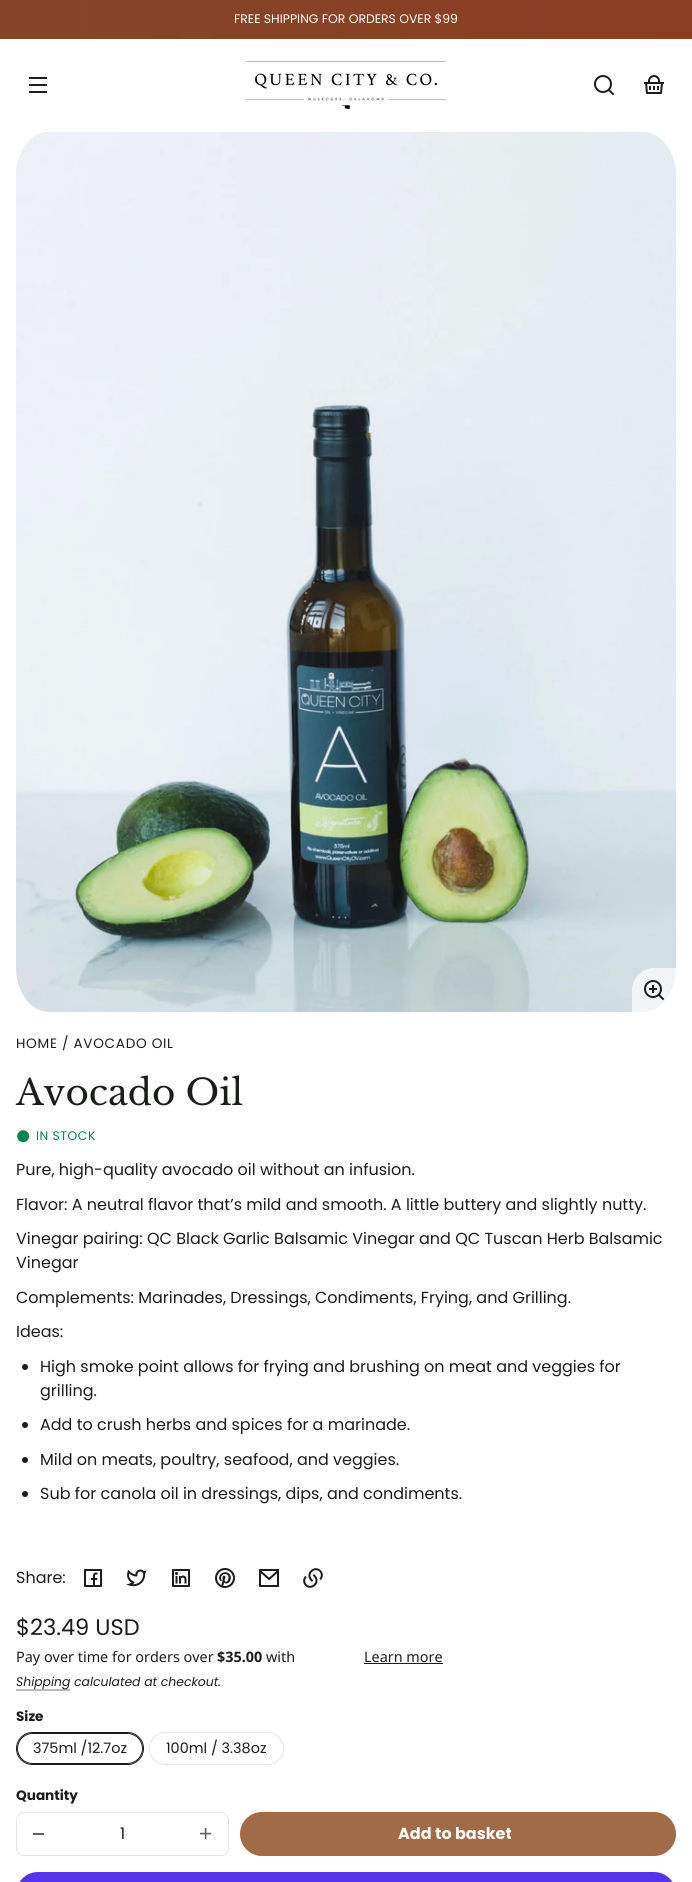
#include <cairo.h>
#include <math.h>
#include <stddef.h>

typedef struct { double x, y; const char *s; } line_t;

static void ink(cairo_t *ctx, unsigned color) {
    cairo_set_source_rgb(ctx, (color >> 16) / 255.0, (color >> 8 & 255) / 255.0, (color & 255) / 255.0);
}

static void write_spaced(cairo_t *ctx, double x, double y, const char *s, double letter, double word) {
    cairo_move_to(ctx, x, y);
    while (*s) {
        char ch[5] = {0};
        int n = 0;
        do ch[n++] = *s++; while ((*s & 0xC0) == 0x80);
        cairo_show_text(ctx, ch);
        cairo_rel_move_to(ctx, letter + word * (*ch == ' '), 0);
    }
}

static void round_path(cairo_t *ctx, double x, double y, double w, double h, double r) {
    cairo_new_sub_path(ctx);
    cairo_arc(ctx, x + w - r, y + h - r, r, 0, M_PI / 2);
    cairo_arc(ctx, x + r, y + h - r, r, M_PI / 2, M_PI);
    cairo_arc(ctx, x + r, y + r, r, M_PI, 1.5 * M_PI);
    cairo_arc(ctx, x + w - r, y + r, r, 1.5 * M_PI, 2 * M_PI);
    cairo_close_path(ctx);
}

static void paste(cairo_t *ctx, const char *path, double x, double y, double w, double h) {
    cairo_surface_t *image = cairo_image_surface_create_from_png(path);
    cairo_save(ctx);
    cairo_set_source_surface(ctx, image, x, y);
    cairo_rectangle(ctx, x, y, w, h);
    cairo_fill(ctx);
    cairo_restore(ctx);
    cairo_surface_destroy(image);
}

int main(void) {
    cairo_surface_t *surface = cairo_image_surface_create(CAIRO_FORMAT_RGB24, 692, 1882);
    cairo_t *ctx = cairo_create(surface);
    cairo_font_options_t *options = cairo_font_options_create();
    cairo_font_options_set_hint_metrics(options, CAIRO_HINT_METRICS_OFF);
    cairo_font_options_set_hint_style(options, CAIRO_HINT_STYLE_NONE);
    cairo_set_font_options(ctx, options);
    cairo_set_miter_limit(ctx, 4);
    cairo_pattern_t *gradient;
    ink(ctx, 0xFFFFFF);
    cairo_paint(ctx);
    gradient = cairo_pattern_create_linear(-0.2, 26, 692, 13);
    cairo_pattern_add_color_stop_rgba(gradient, 0.07, 0.522, 0.275, 0.157, 1);
    cairo_pattern_add_color_stop_rgba(gradient, 1, 0.549, 0.235, 0.129, 1);
    cairo_set_source(ctx, gradient);
    cairo_pattern_destroy(gradient);
    cairo_rectangle(ctx, 0, 0, 692, 39);
    cairo_fill(ctx);
    cairo_select_font_face(ctx, "Poppins", CAIRO_FONT_SLANT_NORMAL, CAIRO_FONT_WEIGHT_NORMAL);
    cairo_set_font_size(ctx, 12.4);
    ink(ctx, 0xFFFFFF);
    cairo_move_to(ctx, 234, 23);
    cairo_show_text(ctx, "FREE SHIPPING FOR ORDERS OVER $99");
    paste(ctx, "media/1.png", 29, 77, 18, 16);
    paste(ctx, "media/2.png", 246, 61, 200, 48);
    paste(ctx, "media/3.png", 594, 75, 21, 21);
    paste(ctx, "media/4.png", 644, 75, 20, 19);
    gradient = cairo_pattern_create_linear(573, 1060, 119, 84);
    cairo_pattern_add_color_stop_rgba(gradient, 0.14, 0.957, 0.949, 0.918, 1);
    cairo_pattern_add_color_stop_rgba(gradient, 1, 0.878, 0.91, 0.918, 1);
    cairo_set_source(ctx, gradient);
    cairo_pattern_destroy(gradient);
    cairo_new_path(ctx);
    cairo_move_to(ctx, 49, 132);
    cairo_line_to(ctx, 643, 132);
    cairo_curve_to(ctx, 661, 132, 676, 152, 676, 176);
    cairo_line_to(ctx, 676, 968);
    cairo_curve_to(ctx, 676, 992, 661, 1012, 643, 1012);
    cairo_line_to(ctx, 49, 1012);
    cairo_curve_to(ctx, 31, 1012, 16, 992, 16, 968);
    cairo_line_to(ctx, 16, 176);
    cairo_curve_to(ctx, 16, 152, 31, 132, 49, 132);
    cairo_close_path(ctx);
    cairo_fill(ctx);
    paste(ctx, "media/5.png", 16, 132, 660, 880);
    cairo_set_source_rgba(ctx, 1, 1, 1, 0.7);
    cairo_new_path(ctx);
    cairo_move_to(ctx, 654, 968);
    cairo_line_to(ctx, 676, 968);
    cairo_line_to(ctx, 676, 1012);
    cairo_line_to(ctx, 632, 1012);
    cairo_line_to(ctx, 632, 990);
    cairo_curve_to(ctx, 632, 978, 642, 968, 654, 968);
    cairo_close_path(ctx);
    cairo_fill(ctx);
    paste(ctx, "media/6.png", 644, 980, 21, 21);
    cairo_set_font_size(ctx, 13.6);
    ink(ctx, 0x1B1D1B);
    write_spaced(ctx, 16, 1048, "HOME / AVOCADO OIL", 0.7, 0);
    cairo_select_font_face(ctx, "Libre Baskerville", CAIRO_FONT_SLANT_NORMAL, CAIRO_FONT_WEIGHT_NORMAL);
    cairo_set_font_size(ctx, 35.75);
    cairo_move_to(ctx, 16, 1105);
    cairo_show_text(ctx, "Avocado Oil");
    paste(ctx, "media/7.png", 17, 1130, 13, 13);
    cairo_select_font_face(ctx, "Poppins", CAIRO_FONT_SLANT_NORMAL, CAIRO_FONT_WEIGHT_NORMAL);
    cairo_set_font_size(ctx, 12.4);
    ink(ctx, 0x008450);
    write_spaced(ctx, 36, 1140, "IN STOCK", 0.5, 0);
    cairo_set_font_size(ctx, 16);
    ink(ctx, 0x1B1D1B);
    {
        static const line_t items[] = {
            {16, 1175, "Pure, high-quality avocado oil without an infusion."},
            {16, 1210, "Flavor: A neutral flavor that’s mild and smooth. A little buttery and slightly nutty."},
            {16, 1244, "Vinegar pairing: QC Black Garlic Balsamic Vinegar and QC Tuscan Herb Balsamic"},
            {16, 1268, "Vinegar"},
            {16, 1303, "Complements: Marinades, Dressings, Condiments, Frying, and Grilling."},
            {16, 1337, "Ideas:"},
        };
        for (size_t i = 0; i < sizeof items / sizeof *items; i++) {
            cairo_move_to(ctx, items[i].x, items[i].y);
            cairo_show_text(ctx, items[i].s);
        }
    }
    cairo_new_path(ctx);
    cairo_arc(ctx, 25, 1367, 3, 0, 2 * M_PI);
    cairo_fill(ctx);
    cairo_move_to(ctx, 40, 1372);
    cairo_show_text(ctx, "High smoke point allows for frying and brushing on meat and veggies for");
    cairo_move_to(ctx, 40, 1396);
    cairo_show_text(ctx, "grilling.");
    cairo_new_path(ctx);
    cairo_arc(ctx, 25, 1425, 3, 0, 2 * M_PI);
    cairo_fill(ctx);
    cairo_move_to(ctx, 40, 1430);
    cairo_show_text(ctx, "Add to crush herbs and spices for a marinade.");
    cairo_new_path(ctx);
    cairo_arc(ctx, 25, 1460, 3, 0, 2 * M_PI);
    cairo_fill(ctx);
    cairo_move_to(ctx, 40, 1465);
    cairo_show_text(ctx, "Mild on meats, poultry, seafood, and veggies.");
    cairo_new_path(ctx);
    cairo_arc(ctx, 25, 1494, 3, 0, 2 * M_PI);
    cairo_fill(ctx);
    cairo_move_to(ctx, 40, 1499);
    cairo_show_text(ctx, "Sub for canola oil in dressings, dips, and condiments.");
    cairo_move_to(ctx, 16, 1583);
    cairo_show_text(ctx, "Share:");
    paste(ctx, "media/8.png", 84, 1569, 18, 18);
    paste(ctx, "media/9.png", 126, 1569, 21, 18);
    paste(ctx, "media/10.png", 172, 1569, 18, 18);
    paste(ctx, "media/11.png", 215, 1568, 20, 20);
    paste(ctx, "media/12.png", 259, 1569, 20, 18);
    paste(ctx, "media/13.png", 303, 1568, 20, 20);
    cairo_set_font_size(ctx, 22.5);
    cairo_move_to(ctx, 16, 1635);
    cairo_show_text(ctx, "$23.49 USD");
    cairo_select_font_face(ctx, "Noto Sans", CAIRO_FONT_SLANT_NORMAL, CAIRO_FONT_WEIGHT_NORMAL);
    cairo_set_font_size(ctx, 14.4);
    cairo_move_to(ctx, 16, 1662);
    cairo_show_text(ctx, "Pay over time for orders over");
    cairo_select_font_face(ctx, "Noto Sans", CAIRO_FONT_SLANT_NORMAL, CAIRO_FONT_WEIGHT_BOLD);
    cairo_move_to(ctx, 217, 1662);
    cairo_show_text(ctx, "$35.00");
    cairo_select_font_face(ctx, "Noto Sans", CAIRO_FONT_SLANT_NORMAL, CAIRO_FONT_WEIGHT_NORMAL);
    cairo_move_to(ctx, 266, 1662);
    cairo_show_text(ctx, "with");
    cairo_move_to(ctx, 364, 1662);
    cairo_show_text(ctx, "Learn more");
    cairo_rectangle(ctx, 364, 1663, 79, 1);
    cairo_fill(ctx);
    ink(ctx, 0xBBBBBB);
    cairo_rectangle(ctx, 16, 1689, 54, 2);
    cairo_fill(ctx);
    cairo_select_font_face(ctx, "Poppins", CAIRO_FONT_SLANT_ITALIC, CAIRO_FONT_WEIGHT_NORMAL);
    cairo_set_font_size(ctx, 12.4);
    ink(ctx, 0x1B1D1B);
    cairo_move_to(ctx, 16, 1686);
    cairo_show_text(ctx, "Shipping calculated at checkout.");
    cairo_select_font_face(ctx, "Poppins", CAIRO_FONT_SLANT_NORMAL, CAIRO_FONT_WEIGHT_BOLD);
    cairo_set_font_size(ctx, 13.6);
    cairo_move_to(ctx, 16, 1721);
    cairo_show_text(ctx, "Size");
    round_path(ctx, 16.5, 1732.5, 127, 32, 16);
    cairo_set_line_width(ctx, 1);
    cairo_stroke(ctx);
    round_path(ctx, 17.5, 1733.5, 125, 30, 15);
    cairo_stroke(ctx);
    cairo_select_font_face(ctx, "Poppins", CAIRO_FONT_SLANT_NORMAL, CAIRO_FONT_WEIGHT_NORMAL);
    cairo_set_font_size(ctx, 14.4);
    cairo_move_to(ctx, 33, 1753);
    cairo_show_text(ctx, "375ml /12.7oz");
    round_path(ctx, 149.5, 1732.5, 134, 32, 16);
    ink(ctx, 0xE6E6E6);
    cairo_stroke(ctx);
    ink(ctx, 0x1B1D1B);
    cairo_move_to(ctx, 166, 1753);
    cairo_show_text(ctx, "100ml / 3.38oz");
    cairo_select_font_face(ctx, "Poppins", CAIRO_FONT_SLANT_NORMAL, CAIRO_FONT_WEIGHT_BOLD);
    cairo_set_font_size(ctx, 13.6);
    cairo_move_to(ctx, 16, 1800);
    cairo_show_text(ctx, "Quantity");
    round_path(ctx, 16.5, 1812.5, 212, 43, 7.5);
    ink(ctx, 0xE6E6E6);
    cairo_stroke(ctx);
    ink(ctx, 0x5F615F);
    cairo_rectangle(ctx, 33, 1833, 11, 2);
    cairo_fill(ctx);
    cairo_select_font_face(ctx, "Poppins", CAIRO_FONT_SLANT_NORMAL, CAIRO_FONT_WEIGHT_NORMAL);
    cairo_set_font_size(ctx, 16);
    ink(ctx, 0x1B1D1B);
    cairo_move_to(ctx, 120, 1839);
    cairo_show_text(ctx, "1");
    paste(ctx, "media/14.png", 200, 1828, 12, 12);
    ink(ctx, 0xA06B46);
    round_path(ctx, 240, 1812, 436, 44, 22);
    cairo_fill(ctx);
    cairo_select_font_face(ctx, "Poppins", CAIRO_FONT_SLANT_NORMAL, CAIRO_FONT_WEIGHT_BOLD);
    ink(ctx, 0xFFFFFF);
    cairo_move_to(ctx, 398, 1839);
    cairo_show_text(ctx, "Add to basket");
    ink(ctx, 0x5433EB);
    round_path(ctx, 16, 1872, 660, 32, 22);
    cairo_fill(ctx);
    cairo_surface_write_to_png(surface, "image.png");
    cairo_font_options_destroy(options);
    cairo_destroy(ctx);
    cairo_surface_destroy(surface);
    return 0;
}
